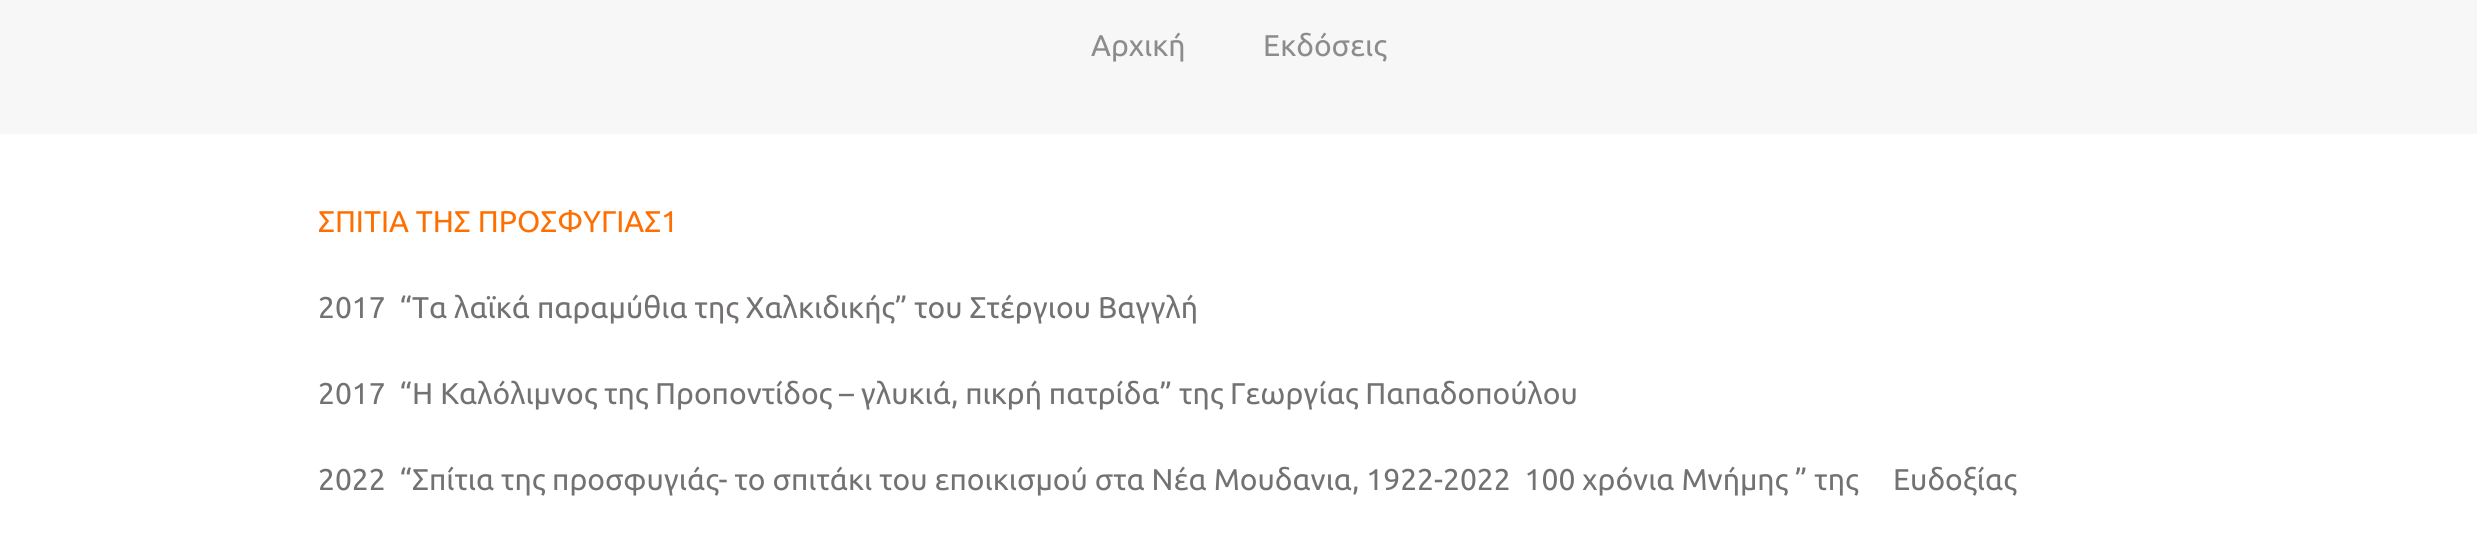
#include <cairo.h>
#include <math.h>
#include <stddef.h>

typedef struct { double x, y; const char *s; } line_t;

static void ink(cairo_t *ctx, unsigned color) {
    cairo_set_source_rgb(ctx, (color >> 16) / 255.0, (color >> 8 & 255) / 255.0, (color & 255) / 255.0);
}

int main(void) {
    cairo_surface_t *surface = cairo_image_surface_create(CAIRO_FORMAT_RGB24, 2477, 539);
    cairo_t *ctx = cairo_create(surface);
    cairo_font_options_t *options = cairo_font_options_create();
    cairo_font_options_set_hint_metrics(options, CAIRO_HINT_METRICS_OFF);
    cairo_font_options_set_hint_style(options, CAIRO_HINT_STYLE_NONE);
    cairo_set_font_options(ctx, options);
    cairo_set_miter_limit(ctx, 4);
    ink(ctx, 0xFFFFFF);
    cairo_paint(ctx);
    ink(ctx, 0xF7F7F7);
    cairo_rectangle(ctx, 0, 0, 2477, 134);
    cairo_fill(ctx);
    cairo_select_font_face(ctx, "Ubuntu", CAIRO_FONT_SLANT_NORMAL, CAIRO_FONT_WEIGHT_NORMAL);
    cairo_set_font_size(ctx, 30);
    ink(ctx, 0x8C8C8C);
    cairo_move_to(ctx, 1091, 56);
    cairo_show_text(ctx, "Αρχική");
    cairo_move_to(ctx, 1263, 56);
    cairo_show_text(ctx, "Εκδόσεις");
    ink(ctx, 0xFF6E01);
    cairo_move_to(ctx, 318, 232);
    cairo_show_text(ctx, "ΣΠΙΤΙΑ ΤΗΣ ΠΡΟΣΦΥΓΙΑΣ1");
    ink(ctx, 0x737171);
    {
        static const line_t items[] = {
            {318, 318, "2017  “Τα λαϊκά παραμύθια της Χαλκιδικής” του Στέργιου Βαγγλή"},
            {318, 404, "2017  “Η Καλόλιμνος της Προποντίδος – γλυκιά, πικρή πατρίδα” της Γεωργίας Παπαδοπούλου"},
            {318, 490, "2022  “Σπίτια της προσφυγιάς- το σπιτάκι του εποικισμού στα Νέα Μουδανια, 1922-2022  100 χρόνια Μνήμης ” της     Ευδοξίας"},
        };
        for (size_t i = 0; i < sizeof items / sizeof *items; i++) {
            cairo_move_to(ctx, items[i].x, items[i].y);
            cairo_show_text(ctx, items[i].s);
        }
    }
    cairo_surface_write_to_png(surface, "image.png");
    cairo_font_options_destroy(options);
    cairo_destroy(ctx);
    cairo_surface_destroy(surface);
    return 0;
}
